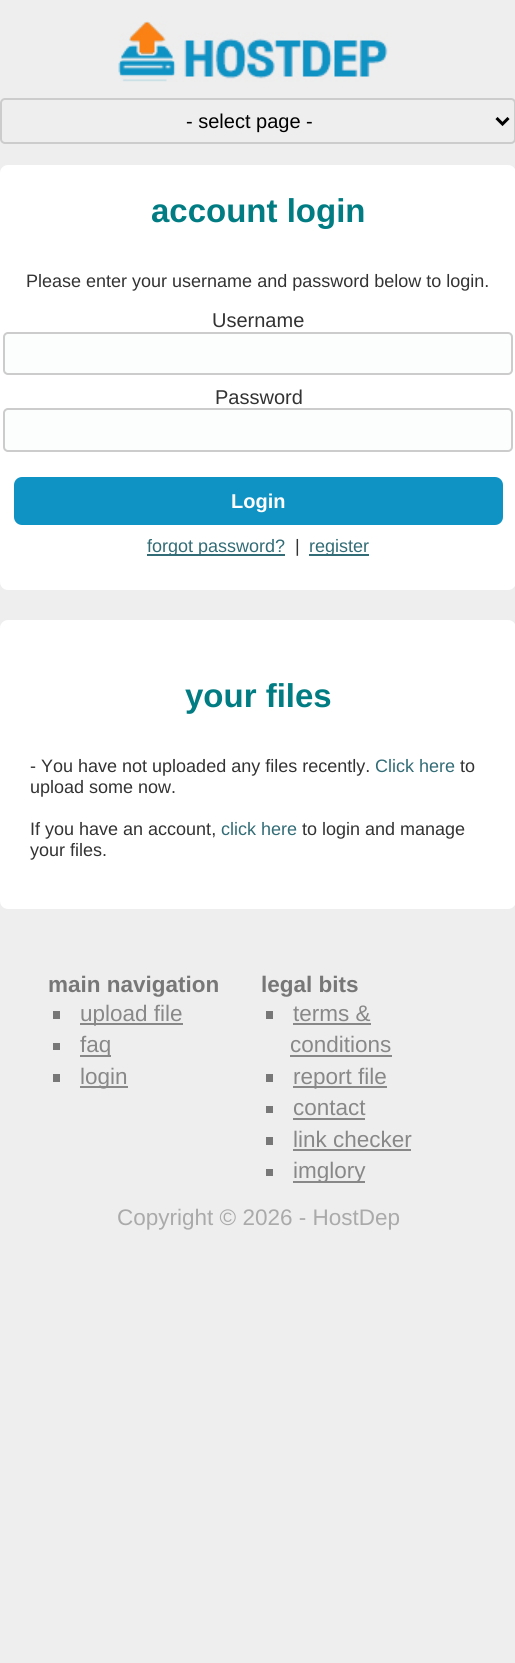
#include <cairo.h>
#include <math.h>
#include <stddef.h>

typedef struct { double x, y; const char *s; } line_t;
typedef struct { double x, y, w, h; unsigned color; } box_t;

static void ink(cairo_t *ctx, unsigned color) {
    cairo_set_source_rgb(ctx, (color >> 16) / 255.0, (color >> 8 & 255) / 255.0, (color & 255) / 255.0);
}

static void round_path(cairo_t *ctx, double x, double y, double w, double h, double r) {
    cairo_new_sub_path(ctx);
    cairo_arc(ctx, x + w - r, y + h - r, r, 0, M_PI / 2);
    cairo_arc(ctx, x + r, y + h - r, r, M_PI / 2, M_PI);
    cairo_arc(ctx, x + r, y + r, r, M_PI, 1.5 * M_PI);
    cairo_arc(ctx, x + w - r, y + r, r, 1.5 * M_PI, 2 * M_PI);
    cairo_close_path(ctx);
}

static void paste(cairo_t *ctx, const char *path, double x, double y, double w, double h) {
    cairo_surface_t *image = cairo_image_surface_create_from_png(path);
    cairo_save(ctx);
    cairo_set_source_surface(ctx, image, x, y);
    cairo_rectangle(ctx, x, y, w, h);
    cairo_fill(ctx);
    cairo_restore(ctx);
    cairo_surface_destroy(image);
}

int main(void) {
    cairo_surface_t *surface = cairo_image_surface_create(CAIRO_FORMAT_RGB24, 515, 1663);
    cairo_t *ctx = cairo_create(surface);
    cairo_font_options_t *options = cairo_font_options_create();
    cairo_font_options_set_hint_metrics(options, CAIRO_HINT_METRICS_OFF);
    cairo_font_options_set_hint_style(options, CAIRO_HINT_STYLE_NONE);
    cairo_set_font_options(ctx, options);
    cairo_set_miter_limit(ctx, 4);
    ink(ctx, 0xEEEEEE);
    cairo_paint(ctx);
    paste(ctx, "media/1.png", 118, 21, 270, 61);
    round_path(ctx, 1, 99, 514, 44, 4);
    ink(ctx, 0xCCCCCC);
    cairo_stroke(ctx);
    cairo_new_path(ctx);
    cairo_move_to(ctx, 496.5, 118);
    cairo_line_to(ctx, 502.5, 124);
    cairo_line_to(ctx, 508.5, 118);
    ink(ctx, 0x000000);
    cairo_set_line_width(ctx, 3);
    cairo_stroke(ctx);
    cairo_select_font_face(ctx, "Liberation Sans", CAIRO_FONT_SLANT_NORMAL, CAIRO_FONT_WEIGHT_NORMAL);
    cairo_set_font_size(ctx, 20);
    cairo_move_to(ctx, 186, 128);
    cairo_show_text(ctx, "- select page -");
    ink(ctx, 0xFFFFFF);
    round_path(ctx, 0, 165, 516, 425, 8);
    cairo_fill(ctx);
    cairo_select_font_face(ctx, "Liberation Sans", CAIRO_FONT_SLANT_NORMAL, CAIRO_FONT_WEIGHT_BOLD);
    cairo_set_font_size(ctx, 33);
    ink(ctx, 0x007C82);
    cairo_move_to(ctx, 151, 222);
    cairo_show_text(ctx, "account login");
    cairo_select_font_face(ctx, "Liberation Sans", CAIRO_FONT_SLANT_NORMAL, CAIRO_FONT_WEIGHT_NORMAL);
    cairo_set_font_size(ctx, 18);
    ink(ctx, 0x333333);
    cairo_move_to(ctx, 26, 287);
    cairo_show_text(ctx, "Please enter your username and password below to login.");
    cairo_set_font_size(ctx, 20);
    cairo_move_to(ctx, 212, 327);
    cairo_show_text(ctx, "Username");
    ink(ctx, 0xFCFDFD);
    round_path(ctx, 4, 333, 508, 41, 4);
    cairo_fill_preserve(ctx);
    ink(ctx, 0xCCCCCC);
    cairo_set_line_width(ctx, 2);
    cairo_stroke(ctx);
    ink(ctx, 0x333333);
    cairo_move_to(ctx, 215, 404);
    cairo_show_text(ctx, "Password");
    ink(ctx, 0xFCFDFD);
    round_path(ctx, 4, 409, 508, 42, 4);
    cairo_fill_preserve(ctx);
    ink(ctx, 0xCCCCCC);
    cairo_stroke(ctx);
    ink(ctx, 0x0F93C4);
    round_path(ctx, 15, 478, 487, 46, 7);
    cairo_fill_preserve(ctx);
    cairo_stroke(ctx);
    cairo_select_font_face(ctx, "Liberation Sans", CAIRO_FONT_SLANT_NORMAL, CAIRO_FONT_WEIGHT_BOLD);
    ink(ctx, 0xFFFFFF);
    cairo_move_to(ctx, 231, 508);
    cairo_show_text(ctx, "Login");
    ink(ctx, 0x326C76);
    cairo_rectangle(ctx, 147, 554, 138, 2);
    cairo_fill(ctx);
    cairo_select_font_face(ctx, "Liberation Sans", CAIRO_FONT_SLANT_NORMAL, CAIRO_FONT_WEIGHT_NORMAL);
    cairo_set_font_size(ctx, 18);
    cairo_move_to(ctx, 147, 552);
    cairo_show_text(ctx, "forgot password?");
    ink(ctx, 0x333333);
    cairo_move_to(ctx, 295, 552);
    cairo_show_text(ctx, "|");
    ink(ctx, 0x326C76);
    cairo_rectangle(ctx, 309, 554, 60, 2);
    cairo_fill(ctx);
    cairo_move_to(ctx, 309, 552);
    cairo_show_text(ctx, "register");
    ink(ctx, 0xFFFFFF);
    round_path(ctx, 0, 620, 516, 289, 8);
    cairo_fill(ctx);
    cairo_select_font_face(ctx, "Liberation Sans", CAIRO_FONT_SLANT_NORMAL, CAIRO_FONT_WEIGHT_BOLD);
    cairo_set_font_size(ctx, 33);
    ink(ctx, 0x007C82);
    cairo_move_to(ctx, 185, 707);
    cairo_show_text(ctx, "your files");
    cairo_select_font_face(ctx, "Liberation Sans", CAIRO_FONT_SLANT_NORMAL, CAIRO_FONT_WEIGHT_NORMAL);
    cairo_set_font_size(ctx, 18);
    ink(ctx, 0x333333);
    cairo_move_to(ctx, 30, 772);
    cairo_show_text(ctx, "- You have not uploaded any files recently.");
    ink(ctx, 0x326C76);
    cairo_move_to(ctx, 375, 772);
    cairo_show_text(ctx, "Click here");
    ink(ctx, 0x333333);
    {
        static const line_t items[] = {
            {460, 772, "to"},
            {30, 793, "upload some now."},
            {30, 835, "If you have an account,"},
        };
        for (size_t i = 0; i < sizeof items / sizeof *items; i++) {
            cairo_move_to(ctx, items[i].x, items[i].y);
            cairo_show_text(ctx, items[i].s);
        }
    }
    ink(ctx, 0x326C76);
    cairo_move_to(ctx, 221, 835);
    cairo_show_text(ctx, "click here");
    ink(ctx, 0x333333);
    cairo_move_to(ctx, 302, 835);
    cairo_show_text(ctx, "to login and manage");
    cairo_move_to(ctx, 30, 856);
    cairo_show_text(ctx, "your files.");
    cairo_select_font_face(ctx, "Liberation Sans", CAIRO_FONT_SLANT_NORMAL, CAIRO_FONT_WEIGHT_BOLD);
    cairo_set_font_size(ctx, 22.5);
    ink(ctx, 0x777777);
    cairo_move_to(ctx, 48, 992);
    cairo_show_text(ctx, "main navigation");
    cairo_rectangle(ctx, 53, 1011, 7, 8);
    cairo_fill(ctx);
    ink(ctx, 0x888888);
    cairo_rectangle(ctx, 80, 1023, 103, 2);
    cairo_fill(ctx);
    cairo_select_font_face(ctx, "Liberation Sans", CAIRO_FONT_SLANT_NORMAL, CAIRO_FONT_WEIGHT_NORMAL);
    cairo_move_to(ctx, 80, 1021);
    cairo_show_text(ctx, "upload file");
    ink(ctx, 0x777777);
    cairo_rectangle(ctx, 53, 1043, 7, 7);
    cairo_fill(ctx);
    ink(ctx, 0x888888);
    cairo_rectangle(ctx, 80, 1055, 31, 2);
    cairo_fill(ctx);
    cairo_move_to(ctx, 80, 1052);
    cairo_show_text(ctx, "faq");
    ink(ctx, 0x777777);
    cairo_rectangle(ctx, 53, 1074, 7, 8);
    cairo_fill(ctx);
    ink(ctx, 0x888888);
    cairo_rectangle(ctx, 80, 1086, 48, 2);
    cairo_fill(ctx);
    cairo_move_to(ctx, 80, 1084);
    cairo_show_text(ctx, "login");
    cairo_select_font_face(ctx, "Liberation Sans", CAIRO_FONT_SLANT_NORMAL, CAIRO_FONT_WEIGHT_BOLD);
    ink(ctx, 0x777777);
    cairo_move_to(ctx, 261, 992);
    cairo_show_text(ctx, "legal bits");
    cairo_rectangle(ctx, 266, 1011, 7, 8);
    cairo_fill(ctx);
    cairo_select_font_face(ctx, "Liberation Sans", CAIRO_FONT_SLANT_NORMAL, CAIRO_FONT_WEIGHT_NORMAL);
    ink(ctx, 0x888888);
    cairo_move_to(ctx, 293, 1021);
    cairo_show_text(ctx, "terms &");
    cairo_rectangle(ctx, 293, 1023, 78, 2);
    cairo_fill(ctx);
    cairo_move_to(ctx, 290, 1052);
    cairo_show_text(ctx, "conditions");
    {
        static const box_t items[] = {
            {290, 1055, 102, 2, 0x888888},
            {266, 1074, 7, 8, 0x777777},
            {293, 1086, 94, 2, 0x888888},
        };
        for (size_t i = 0; i < sizeof items / sizeof *items; i++) {
            ink(ctx, items[i].color);
            cairo_rectangle(ctx, items[i].x, items[i].y, items[i].w, items[i].h);
            cairo_fill(ctx);
        }
    }
    cairo_move_to(ctx, 293, 1084);
    cairo_show_text(ctx, "report file");
    ink(ctx, 0x777777);
    cairo_rectangle(ctx, 266, 1106, 7, 7);
    cairo_fill(ctx);
    ink(ctx, 0x888888);
    cairo_move_to(ctx, 293, 1115);
    cairo_show_text(ctx, "contact");
    cairo_rectangle(ctx, 293, 1118, 72, 2);
    cairo_fill(ctx);
    ink(ctx, 0x777777);
    cairo_rectangle(ctx, 266, 1137, 7, 8);
    cairo_fill(ctx);
    ink(ctx, 0x888888);
    cairo_move_to(ctx, 293, 1147);
    cairo_show_text(ctx, "link checker");
    {
        static const box_t items[] = {
            {293, 1149, 118, 2, 0x888888},
            {266, 1169, 7, 7, 0x777777},
            {293, 1181, 72, 2, 0x888888},
        };
        for (size_t i = 0; i < sizeof items / sizeof *items; i++) {
            ink(ctx, items[i].color);
            cairo_rectangle(ctx, items[i].x, items[i].y, items[i].w, items[i].h);
            cairo_fill(ctx);
        }
    }
    cairo_move_to(ctx, 293, 1178);
    cairo_show_text(ctx, "imglory");
    ink(ctx, 0xAAAAAA);
    cairo_move_to(ctx, 117, 1225);
    cairo_show_text(ctx, "Copyright © 2026 - HostDep");
    cairo_surface_write_to_png(surface, "image.png");
    cairo_font_options_destroy(options);
    cairo_destroy(ctx);
    cairo_surface_destroy(surface);
    return 0;
}
